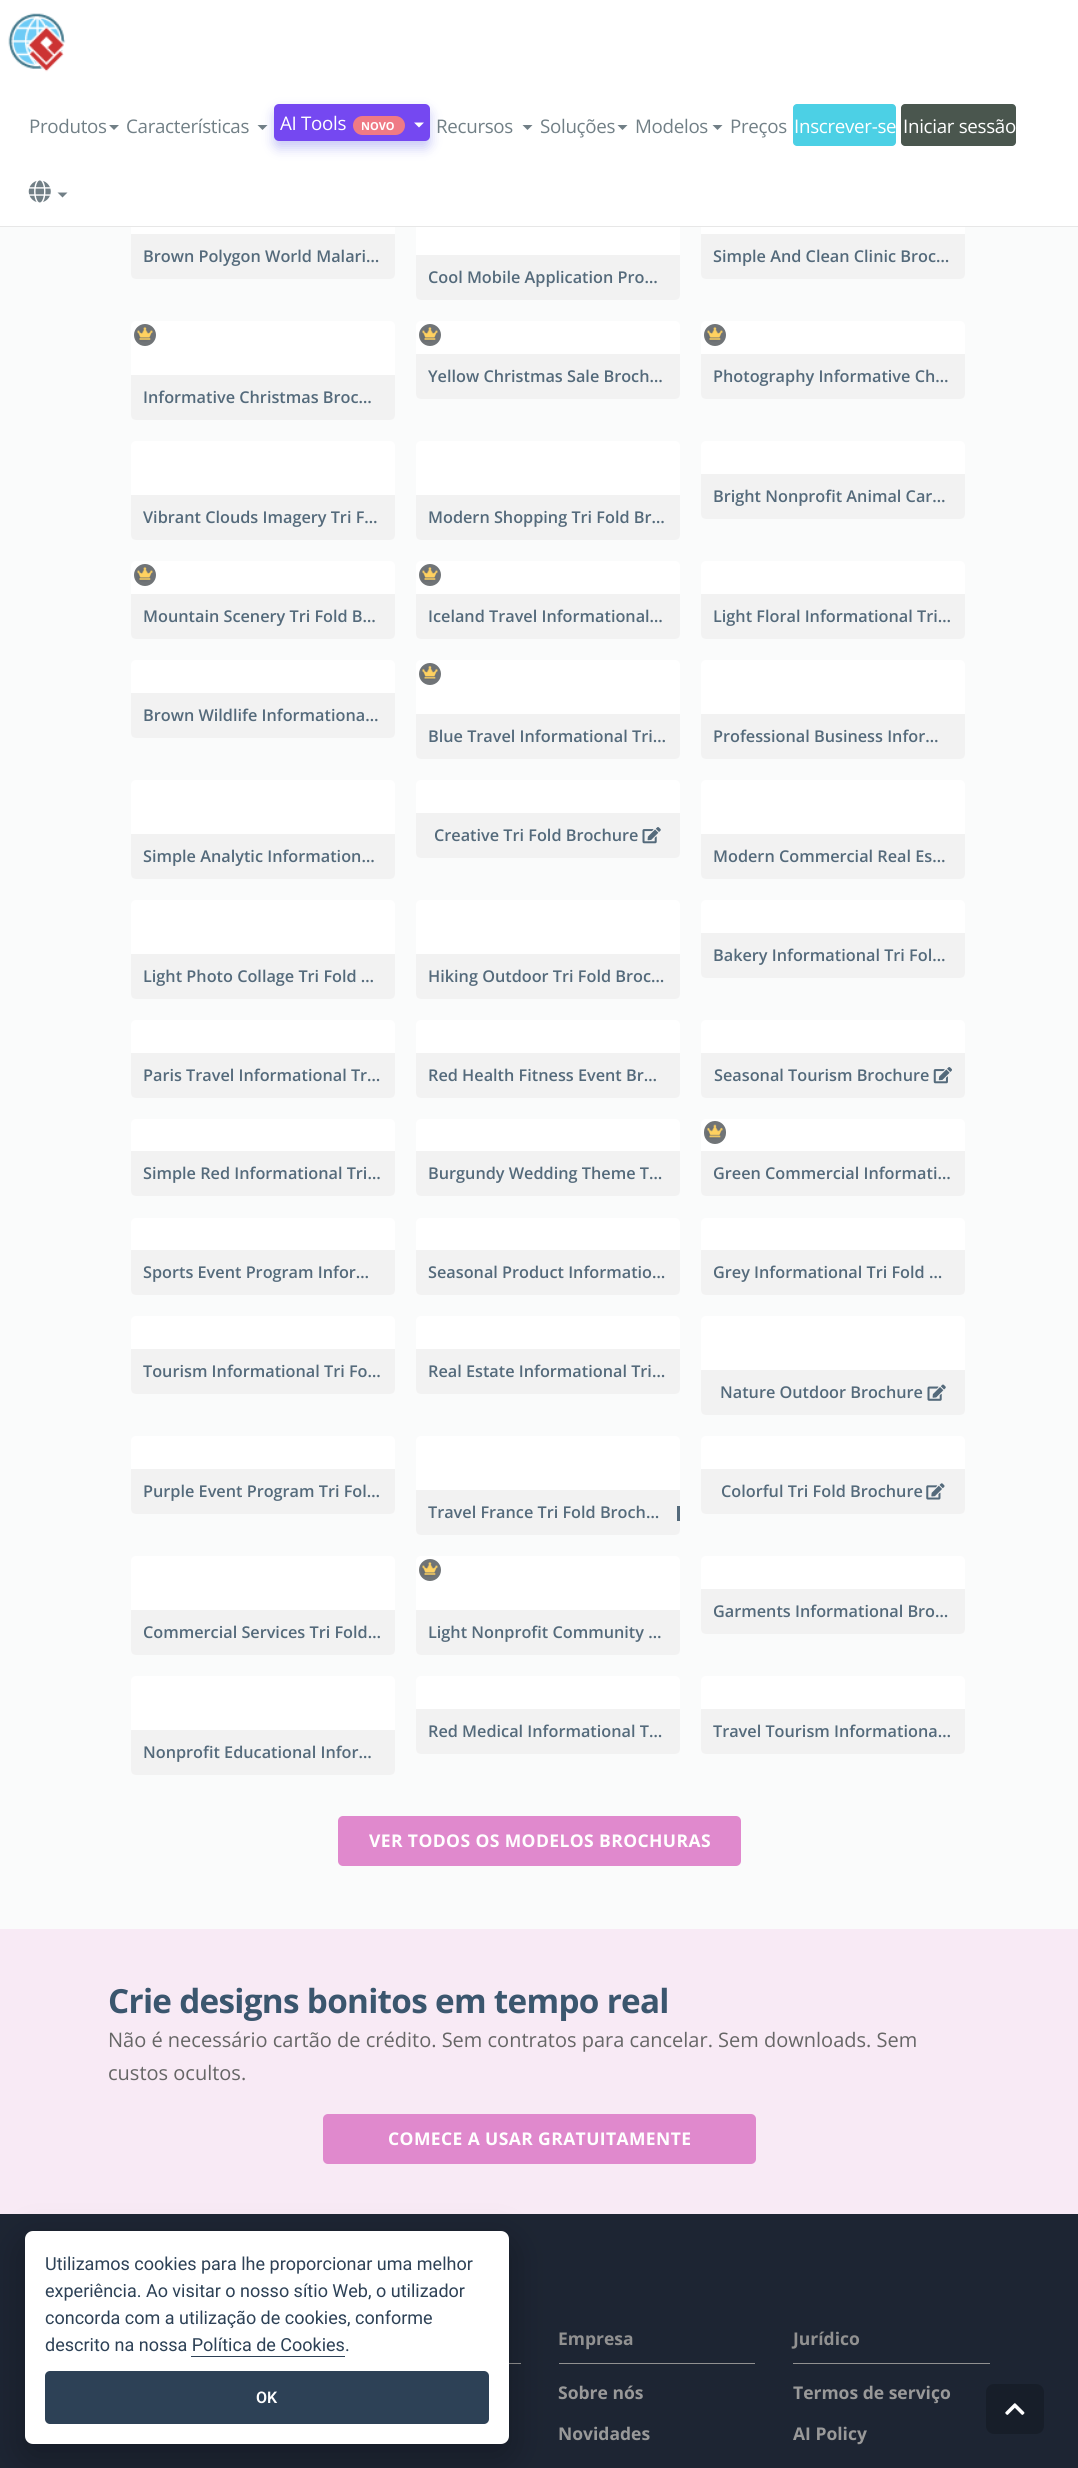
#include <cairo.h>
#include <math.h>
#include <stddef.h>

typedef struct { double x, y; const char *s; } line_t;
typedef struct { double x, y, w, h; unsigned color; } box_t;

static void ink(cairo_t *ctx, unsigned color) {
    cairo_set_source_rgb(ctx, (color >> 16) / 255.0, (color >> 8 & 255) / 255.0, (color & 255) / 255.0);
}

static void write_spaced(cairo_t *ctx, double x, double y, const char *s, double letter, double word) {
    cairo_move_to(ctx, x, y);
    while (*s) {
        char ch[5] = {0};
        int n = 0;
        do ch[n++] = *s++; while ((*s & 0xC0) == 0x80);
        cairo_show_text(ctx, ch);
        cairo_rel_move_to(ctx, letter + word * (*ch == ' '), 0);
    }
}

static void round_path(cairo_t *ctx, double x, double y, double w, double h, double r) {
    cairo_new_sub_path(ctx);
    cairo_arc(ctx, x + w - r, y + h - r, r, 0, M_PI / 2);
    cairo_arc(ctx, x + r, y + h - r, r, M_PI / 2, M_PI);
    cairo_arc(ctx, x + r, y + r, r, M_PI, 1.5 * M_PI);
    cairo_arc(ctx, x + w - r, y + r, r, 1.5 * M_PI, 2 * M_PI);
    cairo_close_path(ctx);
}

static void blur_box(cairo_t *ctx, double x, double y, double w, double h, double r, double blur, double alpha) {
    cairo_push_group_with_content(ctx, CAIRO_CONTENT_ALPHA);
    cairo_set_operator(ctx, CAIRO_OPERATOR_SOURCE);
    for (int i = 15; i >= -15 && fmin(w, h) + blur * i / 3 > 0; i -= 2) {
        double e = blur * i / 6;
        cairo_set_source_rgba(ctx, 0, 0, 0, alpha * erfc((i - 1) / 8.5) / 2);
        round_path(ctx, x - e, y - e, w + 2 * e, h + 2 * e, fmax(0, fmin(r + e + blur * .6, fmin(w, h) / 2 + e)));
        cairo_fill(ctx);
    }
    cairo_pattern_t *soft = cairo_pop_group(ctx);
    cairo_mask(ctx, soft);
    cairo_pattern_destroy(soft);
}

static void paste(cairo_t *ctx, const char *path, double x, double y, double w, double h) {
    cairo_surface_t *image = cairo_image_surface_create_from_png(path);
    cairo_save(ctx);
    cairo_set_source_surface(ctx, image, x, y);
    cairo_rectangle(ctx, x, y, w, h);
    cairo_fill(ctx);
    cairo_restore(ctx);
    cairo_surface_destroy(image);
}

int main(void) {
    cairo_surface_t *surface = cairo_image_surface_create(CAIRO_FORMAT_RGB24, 1078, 2468);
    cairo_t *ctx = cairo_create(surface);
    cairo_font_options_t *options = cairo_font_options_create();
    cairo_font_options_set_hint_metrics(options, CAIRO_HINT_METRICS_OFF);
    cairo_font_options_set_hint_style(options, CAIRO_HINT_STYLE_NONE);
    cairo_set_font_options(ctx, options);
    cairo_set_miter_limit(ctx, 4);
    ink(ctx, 0xFAFBFB);
    cairo_paint(ctx);
    ink(ctx, 0xFFFFFF);
    round_path(ctx, 131, 201, 264, 78, 5);
    cairo_fill(ctx);
    round_path(ctx, 701, 201, 264, 78, 5);
    cairo_fill(ctx);
    round_path(ctx, 416, 201, 264, 99, 5);
    cairo_fill(ctx);
    cairo_rectangle(ctx, 0, 0, 1078, 226);
    cairo_fill(ctx);
    ink(ctx, 0xE7E7E7);
    cairo_rectangle(ctx, 0, 226, 1078, 1);
    cairo_fill(ctx);
    paste(ctx, "media/1.png", 8, 13, 58, 59);
    cairo_select_font_face(ctx, "Open Sans", CAIRO_FONT_SLANT_NORMAL, CAIRO_FONT_WEIGHT_NORMAL);
    cairo_set_font_size(ctx, 18.75);
    ink(ctx, 0x717F86);
    write_spaced(ctx, 29, 133, "Produtos", -0.3, 0);
    cairo_new_path(ctx);
    cairo_move_to(ctx, 109, 125);
    cairo_line_to(ctx, 119, 125);
    cairo_line_to(ctx, 114, 130);
    cairo_close_path(ctx);
    cairo_fill(ctx);
    write_spaced(ctx, 126, 133, "Características", -0.3, 0);
    cairo_new_path(ctx);
    cairo_move_to(ctx, 257.5, 125);
    cairo_line_to(ctx, 267.5, 125);
    cairo_line_to(ctx, 262.5, 130);
    cairo_close_path(ctx);
    cairo_fill(ctx);
    ink(ctx, 0x4C4EE5);
    blur_box(ctx, 274, 110, 156, 38, 5, 6, 0.3);
    ink(ctx, 0x7548F1);
    round_path(ctx, 274, 104, 156, 37, 5);
    cairo_fill(ctx);
    ink(ctx, 0xFFFFFF);
    write_spaced(ctx, 280, 130, "AI Tools", -0.3, 0);
    ink(ctx, 0xEF7A85);
    round_path(ctx, 353, 116, 52, 19, 9.5);
    cairo_fill(ctx);
    cairo_select_font_face(ctx, "Open Sans", CAIRO_FONT_SLANT_NORMAL, CAIRO_FONT_WEIGHT_BOLD);
    cairo_set_font_size(ctx, 11);
    ink(ctx, 0xFFFFFF);
    cairo_move_to(ctx, 361, 130);
    cairo_show_text(ctx, "NOVO");
    cairo_new_path(ctx);
    cairo_move_to(ctx, 414, 122.5);
    cairo_line_to(ctx, 424, 122.5);
    cairo_line_to(ctx, 419, 127.5);
    cairo_close_path(ctx);
    cairo_fill(ctx);
    cairo_select_font_face(ctx, "Open Sans", CAIRO_FONT_SLANT_NORMAL, CAIRO_FONT_WEIGHT_NORMAL);
    cairo_set_font_size(ctx, 18.75);
    ink(ctx, 0x717F86);
    write_spaced(ctx, 436, 133, "Recursos", -0.3, 0);
    cairo_new_path(ctx);
    cairo_move_to(ctx, 522.5, 125);
    cairo_line_to(ctx, 532.5, 125);
    cairo_line_to(ctx, 527.5, 130);
    cairo_close_path(ctx);
    cairo_fill(ctx);
    write_spaced(ctx, 540, 133, "Soluções", -0.3, 0);
    cairo_new_path(ctx);
    cairo_move_to(ctx, 617.5, 125);
    cairo_line_to(ctx, 627.5, 125);
    cairo_line_to(ctx, 622.5, 130);
    cairo_close_path(ctx);
    cairo_fill(ctx);
    write_spaced(ctx, 635, 133, "Modelos", -0.3, 0);
    cairo_new_path(ctx);
    cairo_move_to(ctx, 712.5, 125);
    cairo_line_to(ctx, 722.5, 125);
    cairo_line_to(ctx, 717.5, 130);
    cairo_close_path(ctx);
    cairo_fill(ctx);
    write_spaced(ctx, 730, 133, "Preços", -0.3, 0);
    ink(ctx, 0x4CD0E5);
    round_path(ctx, 793, 104, 103, 42, 4);
    cairo_fill(ctx);
    ink(ctx, 0xFFFFFF);
    write_spaced(ctx, 794, 133, "Inscrever-se", -0.3, 0);
    ink(ctx, 0x4A564E);
    round_path(ctx, 901, 104, 115, 42, 4);
    cairo_fill(ctx);
    ink(ctx, 0xFFFFFF);
    write_spaced(ctx, 903, 133, "Iniciar sessão", -0.3, 0);
    paste(ctx, "media/2.png", 28, 180, 23, 23);
    ink(ctx, 0x717F86);
    cairo_new_path(ctx);
    cairo_move_to(ctx, 57.5, 192.5);
    cairo_line_to(ctx, 67.5, 192.5);
    cairo_line_to(ctx, 62.5, 197.5);
    cairo_close_path(ctx);
    cairo_fill(ctx);
    ink(ctx, 0xF2F2F2);
    cairo_new_path(ctx);
    cairo_move_to(ctx, 131, 234);
    cairo_line_to(ctx, 395, 234);
    cairo_line_to(ctx, 395, 274);
    cairo_curve_to(ctx, 395, 277, 393, 279, 390, 279);
    cairo_line_to(ctx, 136, 279);
    cairo_curve_to(ctx, 133, 279, 131, 277, 131, 274);
    cairo_close_path(ctx);
    cairo_fill(ctx);
    cairo_select_font_face(ctx, "Open Sans SemiBold", CAIRO_FONT_SLANT_NORMAL, CAIRO_FONT_WEIGHT_NORMAL);
    cairo_set_font_size(ctx, 16.25);
    ink(ctx, 0x546A7B);
    cairo_move_to(ctx, 143, 262);
    cairo_show_text(ctx, "Brown Polygon World Malari…");
    ink(ctx, 0xF2F2F2);
    cairo_new_path(ctx);
    cairo_move_to(ctx, 701, 234);
    cairo_line_to(ctx, 965, 234);
    cairo_line_to(ctx, 965, 274);
    cairo_curve_to(ctx, 965, 277, 963, 279, 960, 279);
    cairo_line_to(ctx, 706, 279);
    cairo_curve_to(ctx, 703, 279, 701, 277, 701, 274);
    cairo_close_path(ctx);
    cairo_fill(ctx);
    ink(ctx, 0x546A7B);
    cairo_move_to(ctx, 713, 262);
    cairo_show_text(ctx, "Simple And Clean Clinic Broc…");
    ink(ctx, 0xF2F2F2);
    cairo_new_path(ctx);
    cairo_move_to(ctx, 416, 255);
    cairo_line_to(ctx, 680, 255);
    cairo_line_to(ctx, 680, 295);
    cairo_curve_to(ctx, 680, 298, 678, 300, 675, 300);
    cairo_line_to(ctx, 421, 300);
    cairo_curve_to(ctx, 418, 300, 416, 298, 416, 295);
    cairo_close_path(ctx);
    cairo_fill(ctx);
    ink(ctx, 0x546A7B);
    cairo_move_to(ctx, 428, 283);
    cairo_show_text(ctx, "Cool Mobile Application Pro…");
    ink(ctx, 0xFFFFFF);
    round_path(ctx, 416, 321, 264, 78, 5);
    cairo_fill(ctx);
    ink(ctx, 0x707477);
    cairo_arc(ctx, 430, 335, 11, 0, 2 * M_PI);
    cairo_fill(ctx);
    paste(ctx, "media/3.png", 421, 327, 17, 15);
    ink(ctx, 0xF2F2F2);
    cairo_new_path(ctx);
    cairo_move_to(ctx, 416, 354);
    cairo_line_to(ctx, 680, 354);
    cairo_line_to(ctx, 680, 394);
    cairo_curve_to(ctx, 680, 397, 678, 399, 675, 399);
    cairo_line_to(ctx, 421, 399);
    cairo_curve_to(ctx, 418, 399, 416, 397, 416, 394);
    cairo_close_path(ctx);
    cairo_fill(ctx);
    ink(ctx, 0x546A7B);
    cairo_move_to(ctx, 428, 382);
    cairo_show_text(ctx, "Yellow Christmas Sale Broch…");
    ink(ctx, 0xFFFFFF);
    round_path(ctx, 701, 321, 264, 78, 5);
    cairo_fill(ctx);
    ink(ctx, 0x707477);
    cairo_arc(ctx, 715, 335, 11, 0, 2 * M_PI);
    cairo_fill(ctx);
    paste(ctx, "media/3.png", 706, 327, 17, 15);
    ink(ctx, 0xF2F2F2);
    cairo_new_path(ctx);
    cairo_move_to(ctx, 701, 354);
    cairo_line_to(ctx, 965, 354);
    cairo_line_to(ctx, 965, 394);
    cairo_curve_to(ctx, 965, 397, 963, 399, 960, 399);
    cairo_line_to(ctx, 706, 399);
    cairo_curve_to(ctx, 703, 399, 701, 397, 701, 394);
    cairo_close_path(ctx);
    cairo_fill(ctx);
    ink(ctx, 0x546A7B);
    cairo_move_to(ctx, 713, 382);
    cairo_show_text(ctx, "Photography Informative Ch…");
    ink(ctx, 0xFFFFFF);
    round_path(ctx, 131, 321, 264, 99, 5);
    cairo_fill(ctx);
    ink(ctx, 0x707477);
    cairo_arc(ctx, 145, 335, 11, 0, 2 * M_PI);
    cairo_fill(ctx);
    paste(ctx, "media/3.png", 136, 327, 17, 15);
    ink(ctx, 0xF2F2F2);
    cairo_new_path(ctx);
    cairo_move_to(ctx, 131, 375);
    cairo_line_to(ctx, 395, 375);
    cairo_line_to(ctx, 395, 415);
    cairo_curve_to(ctx, 395, 418, 393, 420, 390, 420);
    cairo_line_to(ctx, 136, 420);
    cairo_curve_to(ctx, 133, 420, 131, 418, 131, 415);
    cairo_close_path(ctx);
    cairo_fill(ctx);
    ink(ctx, 0x546A7B);
    cairo_move_to(ctx, 143, 403);
    cairo_show_text(ctx, "Informative Christmas Broc…");
    ink(ctx, 0xFFFFFF);
    round_path(ctx, 701, 441, 264, 78, 5);
    cairo_fill(ctx);
    ink(ctx, 0xF2F2F2);
    cairo_new_path(ctx);
    cairo_move_to(ctx, 701, 474);
    cairo_line_to(ctx, 965, 474);
    cairo_line_to(ctx, 965, 514);
    cairo_curve_to(ctx, 965, 517, 963, 519, 960, 519);
    cairo_line_to(ctx, 706, 519);
    cairo_curve_to(ctx, 703, 519, 701, 517, 701, 514);
    cairo_close_path(ctx);
    cairo_fill(ctx);
    ink(ctx, 0x546A7B);
    cairo_move_to(ctx, 713, 502);
    cairo_show_text(ctx, "Bright Nonprofit Animal Car…");
    ink(ctx, 0xFFFFFF);
    round_path(ctx, 131, 441, 264, 99, 5);
    cairo_fill(ctx);
    ink(ctx, 0xF2F2F2);
    cairo_new_path(ctx);
    cairo_move_to(ctx, 131, 495);
    cairo_line_to(ctx, 395, 495);
    cairo_line_to(ctx, 395, 535);
    cairo_curve_to(ctx, 395, 538, 393, 540, 390, 540);
    cairo_line_to(ctx, 136, 540);
    cairo_curve_to(ctx, 133, 540, 131, 538, 131, 535);
    cairo_close_path(ctx);
    cairo_fill(ctx);
    ink(ctx, 0x546A7B);
    cairo_move_to(ctx, 143, 523);
    cairo_show_text(ctx, "Vibrant Clouds Imagery Tri F…");
    ink(ctx, 0xFFFFFF);
    round_path(ctx, 416, 441, 264, 99, 5);
    cairo_fill(ctx);
    ink(ctx, 0xF2F2F2);
    cairo_new_path(ctx);
    cairo_move_to(ctx, 416, 495);
    cairo_line_to(ctx, 680, 495);
    cairo_line_to(ctx, 680, 535);
    cairo_curve_to(ctx, 680, 538, 678, 540, 675, 540);
    cairo_line_to(ctx, 421, 540);
    cairo_curve_to(ctx, 418, 540, 416, 538, 416, 535);
    cairo_close_path(ctx);
    cairo_fill(ctx);
    ink(ctx, 0x546A7B);
    cairo_move_to(ctx, 428, 523);
    cairo_show_text(ctx, "Modern Shopping Tri Fold Br…");
    ink(ctx, 0xFFFFFF);
    round_path(ctx, 131, 561, 264, 78, 5);
    cairo_fill(ctx);
    ink(ctx, 0x707477);
    cairo_arc(ctx, 145, 575, 11, 0, 2 * M_PI);
    cairo_fill(ctx);
    paste(ctx, "media/3.png", 136, 567, 17, 15);
    ink(ctx, 0xF2F2F2);
    cairo_new_path(ctx);
    cairo_move_to(ctx, 131, 594);
    cairo_line_to(ctx, 395, 594);
    cairo_line_to(ctx, 395, 634);
    cairo_curve_to(ctx, 395, 637, 393, 639, 390, 639);
    cairo_line_to(ctx, 136, 639);
    cairo_curve_to(ctx, 133, 639, 131, 637, 131, 634);
    cairo_close_path(ctx);
    cairo_fill(ctx);
    ink(ctx, 0x546A7B);
    cairo_move_to(ctx, 143, 622);
    cairo_show_text(ctx, "Mountain Scenery Tri Fold B…");
    ink(ctx, 0xFFFFFF);
    round_path(ctx, 416, 561, 264, 78, 5);
    cairo_fill(ctx);
    ink(ctx, 0x707477);
    cairo_arc(ctx, 430, 575, 11, 0, 2 * M_PI);
    cairo_fill(ctx);
    paste(ctx, "media/3.png", 421, 567, 17, 15);
    ink(ctx, 0xF2F2F2);
    cairo_new_path(ctx);
    cairo_move_to(ctx, 416, 594);
    cairo_line_to(ctx, 680, 594);
    cairo_line_to(ctx, 680, 634);
    cairo_curve_to(ctx, 680, 637, 678, 639, 675, 639);
    cairo_line_to(ctx, 421, 639);
    cairo_curve_to(ctx, 418, 639, 416, 637, 416, 634);
    cairo_close_path(ctx);
    cairo_fill(ctx);
    ink(ctx, 0x546A7B);
    cairo_move_to(ctx, 428, 622);
    cairo_show_text(ctx, "Iceland Travel Informational…");
    ink(ctx, 0xFFFFFF);
    round_path(ctx, 701, 561, 264, 78, 5);
    cairo_fill(ctx);
    ink(ctx, 0xF2F2F2);
    cairo_new_path(ctx);
    cairo_move_to(ctx, 701, 594);
    cairo_line_to(ctx, 965, 594);
    cairo_line_to(ctx, 965, 634);
    cairo_curve_to(ctx, 965, 637, 963, 639, 960, 639);
    cairo_line_to(ctx, 706, 639);
    cairo_curve_to(ctx, 703, 639, 701, 637, 701, 634);
    cairo_close_path(ctx);
    cairo_fill(ctx);
    ink(ctx, 0x546A7B);
    cairo_move_to(ctx, 713, 622);
    cairo_show_text(ctx, "Light Floral Informational Tri…");
    ink(ctx, 0xFFFFFF);
    round_path(ctx, 131, 660, 264, 78, 5);
    cairo_fill(ctx);
    ink(ctx, 0xF2F2F2);
    cairo_new_path(ctx);
    cairo_move_to(ctx, 131, 693);
    cairo_line_to(ctx, 395, 693);
    cairo_line_to(ctx, 395, 733);
    cairo_curve_to(ctx, 395, 736, 393, 738, 390, 738);
    cairo_line_to(ctx, 136, 738);
    cairo_curve_to(ctx, 133, 738, 131, 736, 131, 733);
    cairo_close_path(ctx);
    cairo_fill(ctx);
    ink(ctx, 0x546A7B);
    cairo_move_to(ctx, 143, 721);
    cairo_show_text(ctx, "Brown Wildlife Informationa…");
    ink(ctx, 0xFFFFFF);
    round_path(ctx, 416, 660, 264, 99, 5);
    cairo_fill(ctx);
    ink(ctx, 0x707477);
    cairo_arc(ctx, 430, 674, 11, 0, 2 * M_PI);
    cairo_fill(ctx);
    paste(ctx, "media/4.png", 421, 666, 17, 14);
    ink(ctx, 0xF2F2F2);
    cairo_new_path(ctx);
    cairo_move_to(ctx, 416, 714);
    cairo_line_to(ctx, 680, 714);
    cairo_line_to(ctx, 680, 754);
    cairo_curve_to(ctx, 680, 757, 678, 759, 675, 759);
    cairo_line_to(ctx, 421, 759);
    cairo_curve_to(ctx, 418, 759, 416, 757, 416, 754);
    cairo_close_path(ctx);
    cairo_fill(ctx);
    ink(ctx, 0x546A7B);
    cairo_move_to(ctx, 428, 742);
    cairo_show_text(ctx, "Blue Travel Informational Tri…");
    ink(ctx, 0xFFFFFF);
    round_path(ctx, 701, 660, 264, 99, 5);
    cairo_fill(ctx);
    ink(ctx, 0xF2F2F2);
    cairo_new_path(ctx);
    cairo_move_to(ctx, 701, 714);
    cairo_line_to(ctx, 965, 714);
    cairo_line_to(ctx, 965, 754);
    cairo_curve_to(ctx, 965, 757, 963, 759, 960, 759);
    cairo_line_to(ctx, 706, 759);
    cairo_curve_to(ctx, 703, 759, 701, 757, 701, 754);
    cairo_close_path(ctx);
    cairo_fill(ctx);
    ink(ctx, 0x546A7B);
    cairo_move_to(ctx, 713, 742);
    cairo_show_text(ctx, "Professional Business Infor…");
    ink(ctx, 0xFFFFFF);
    round_path(ctx, 416, 780, 264, 78, 5);
    cairo_fill(ctx);
    ink(ctx, 0xF2F2F2);
    cairo_new_path(ctx);
    cairo_move_to(ctx, 416, 813);
    cairo_line_to(ctx, 680, 813);
    cairo_line_to(ctx, 680, 853);
    cairo_curve_to(ctx, 680, 856, 678, 858, 675, 858);
    cairo_line_to(ctx, 421, 858);
    cairo_curve_to(ctx, 418, 858, 416, 856, 416, 853);
    cairo_close_path(ctx);
    cairo_fill(ctx);
    ink(ctx, 0x546A7B);
    cairo_move_to(ctx, 434, 841);
    cairo_show_text(ctx, "Creative Tri Fold Brochure");
    paste(ctx, "media/5.png", 642, 827, 19, 17);
    ink(ctx, 0xFFFFFF);
    round_path(ctx, 131, 780, 264, 99, 5);
    cairo_fill(ctx);
    ink(ctx, 0xF2F2F2);
    cairo_new_path(ctx);
    cairo_move_to(ctx, 131, 834);
    cairo_line_to(ctx, 395, 834);
    cairo_line_to(ctx, 395, 874);
    cairo_curve_to(ctx, 395, 877, 393, 879, 390, 879);
    cairo_line_to(ctx, 136, 879);
    cairo_curve_to(ctx, 133, 879, 131, 877, 131, 874);
    cairo_close_path(ctx);
    cairo_fill(ctx);
    ink(ctx, 0x546A7B);
    cairo_move_to(ctx, 143, 862);
    cairo_show_text(ctx, "Simple Analytic Information…");
    ink(ctx, 0xFFFFFF);
    round_path(ctx, 701, 780, 264, 99, 5);
    cairo_fill(ctx);
    ink(ctx, 0xF2F2F2);
    cairo_new_path(ctx);
    cairo_move_to(ctx, 701, 834);
    cairo_line_to(ctx, 965, 834);
    cairo_line_to(ctx, 965, 874);
    cairo_curve_to(ctx, 965, 877, 963, 879, 960, 879);
    cairo_line_to(ctx, 706, 879);
    cairo_curve_to(ctx, 703, 879, 701, 877, 701, 874);
    cairo_close_path(ctx);
    cairo_fill(ctx);
    ink(ctx, 0x546A7B);
    cairo_move_to(ctx, 713, 862);
    cairo_show_text(ctx, "Modern Commercial Real Es…");
    ink(ctx, 0xFFFFFF);
    round_path(ctx, 701, 900, 264, 78, 5);
    cairo_fill(ctx);
    ink(ctx, 0xF2F2F2);
    cairo_new_path(ctx);
    cairo_move_to(ctx, 701, 933);
    cairo_line_to(ctx, 965, 933);
    cairo_line_to(ctx, 965, 973);
    cairo_curve_to(ctx, 965, 976, 963, 978, 960, 978);
    cairo_line_to(ctx, 706, 978);
    cairo_curve_to(ctx, 703, 978, 701, 976, 701, 973);
    cairo_close_path(ctx);
    cairo_fill(ctx);
    ink(ctx, 0x546A7B);
    cairo_move_to(ctx, 713, 961);
    cairo_show_text(ctx, "Bakery Informational Tri Fol…");
    ink(ctx, 0xFFFFFF);
    round_path(ctx, 131, 900, 264, 99, 5);
    cairo_fill(ctx);
    ink(ctx, 0xF2F2F2);
    cairo_new_path(ctx);
    cairo_move_to(ctx, 131, 954);
    cairo_line_to(ctx, 395, 954);
    cairo_line_to(ctx, 395, 994);
    cairo_curve_to(ctx, 395, 997, 393, 999, 390, 999);
    cairo_line_to(ctx, 136, 999);
    cairo_curve_to(ctx, 133, 999, 131, 997, 131, 994);
    cairo_close_path(ctx);
    cairo_fill(ctx);
    ink(ctx, 0x546A7B);
    cairo_move_to(ctx, 143, 982);
    cairo_show_text(ctx, "Light Photo Collage Tri Fold …");
    ink(ctx, 0xFFFFFF);
    round_path(ctx, 416, 900, 264, 99, 5);
    cairo_fill(ctx);
    ink(ctx, 0xF2F2F2);
    cairo_new_path(ctx);
    cairo_move_to(ctx, 416, 954);
    cairo_line_to(ctx, 680, 954);
    cairo_line_to(ctx, 680, 994);
    cairo_curve_to(ctx, 680, 997, 678, 999, 675, 999);
    cairo_line_to(ctx, 421, 999);
    cairo_curve_to(ctx, 418, 999, 416, 997, 416, 994);
    cairo_close_path(ctx);
    cairo_fill(ctx);
    ink(ctx, 0x546A7B);
    cairo_move_to(ctx, 428, 982);
    cairo_show_text(ctx, "Hiking Outdoor Tri Fold Broc…");
    ink(ctx, 0xFFFFFF);
    round_path(ctx, 131, 1020, 264, 78, 5);
    cairo_fill(ctx);
    ink(ctx, 0xF2F2F2);
    cairo_new_path(ctx);
    cairo_move_to(ctx, 131, 1053);
    cairo_line_to(ctx, 395, 1053);
    cairo_line_to(ctx, 395, 1093);
    cairo_curve_to(ctx, 395, 1096, 393, 1098, 390, 1098);
    cairo_line_to(ctx, 136, 1098);
    cairo_curve_to(ctx, 133, 1098, 131, 1096, 131, 1093);
    cairo_close_path(ctx);
    cairo_fill(ctx);
    ink(ctx, 0x546A7B);
    cairo_move_to(ctx, 143, 1081);
    cairo_show_text(ctx, "Paris Travel Informational Tr…");
    ink(ctx, 0xFFFFFF);
    round_path(ctx, 416, 1020, 264, 78, 5);
    cairo_fill(ctx);
    ink(ctx, 0xF2F2F2);
    cairo_new_path(ctx);
    cairo_move_to(ctx, 416, 1053);
    cairo_line_to(ctx, 680, 1053);
    cairo_line_to(ctx, 680, 1093);
    cairo_curve_to(ctx, 680, 1096, 678, 1098, 675, 1098);
    cairo_line_to(ctx, 421, 1098);
    cairo_curve_to(ctx, 418, 1098, 416, 1096, 416, 1093);
    cairo_close_path(ctx);
    cairo_fill(ctx);
    ink(ctx, 0x546A7B);
    cairo_move_to(ctx, 428, 1081);
    cairo_show_text(ctx, "Red Health Fitness Event Br…");
    ink(ctx, 0xFFFFFF);
    round_path(ctx, 701, 1020, 264, 78, 5);
    cairo_fill(ctx);
    ink(ctx, 0xF2F2F2);
    cairo_new_path(ctx);
    cairo_move_to(ctx, 701, 1053);
    cairo_line_to(ctx, 965, 1053);
    cairo_line_to(ctx, 965, 1093);
    cairo_curve_to(ctx, 965, 1096, 963, 1098, 960, 1098);
    cairo_line_to(ctx, 706, 1098);
    cairo_curve_to(ctx, 703, 1098, 701, 1096, 701, 1093);
    cairo_close_path(ctx);
    cairo_fill(ctx);
    ink(ctx, 0x546A7B);
    cairo_move_to(ctx, 714, 1081);
    cairo_show_text(ctx, "Seasonal Tourism Brochure");
    paste(ctx, "media/6.png", 933, 1067, 19, 17);
    ink(ctx, 0xFFFFFF);
    round_path(ctx, 131, 1119, 264, 77, 5);
    cairo_fill(ctx);
    ink(ctx, 0xF2F2F2);
    cairo_new_path(ctx);
    cairo_move_to(ctx, 131, 1151);
    cairo_line_to(ctx, 395, 1151);
    cairo_line_to(ctx, 395, 1191);
    cairo_curve_to(ctx, 395, 1194, 393, 1196, 390, 1196);
    cairo_line_to(ctx, 136, 1196);
    cairo_curve_to(ctx, 133, 1196, 131, 1194, 131, 1191);
    cairo_close_path(ctx);
    cairo_fill(ctx);
    ink(ctx, 0x546A7B);
    cairo_move_to(ctx, 143, 1179);
    cairo_show_text(ctx, "Simple Red Informational Tri…");
    ink(ctx, 0xFFFFFF);
    round_path(ctx, 416, 1119, 264, 77, 5);
    cairo_fill(ctx);
    ink(ctx, 0xF2F2F2);
    cairo_new_path(ctx);
    cairo_move_to(ctx, 416, 1151);
    cairo_line_to(ctx, 680, 1151);
    cairo_line_to(ctx, 680, 1191);
    cairo_curve_to(ctx, 680, 1194, 678, 1196, 675, 1196);
    cairo_line_to(ctx, 421, 1196);
    cairo_curve_to(ctx, 418, 1196, 416, 1194, 416, 1191);
    cairo_close_path(ctx);
    cairo_fill(ctx);
    ink(ctx, 0x546A7B);
    cairo_move_to(ctx, 428, 1179);
    cairo_show_text(ctx, "Burgundy Wedding Theme T…");
    ink(ctx, 0xFFFFFF);
    round_path(ctx, 701, 1119, 264, 77, 5);
    cairo_fill(ctx);
    ink(ctx, 0x707477);
    round_path(ctx, 704, 1121, 22, 23, 11);
    cairo_fill(ctx);
    paste(ctx, "media/7.png", 706, 1124, 17, 15);
    ink(ctx, 0xF2F2F2);
    cairo_new_path(ctx);
    cairo_move_to(ctx, 701, 1151);
    cairo_line_to(ctx, 965, 1151);
    cairo_line_to(ctx, 965, 1191);
    cairo_curve_to(ctx, 965, 1194, 963, 1196, 960, 1196);
    cairo_line_to(ctx, 706, 1196);
    cairo_curve_to(ctx, 703, 1196, 701, 1194, 701, 1191);
    cairo_close_path(ctx);
    cairo_fill(ctx);
    ink(ctx, 0x546A7B);
    cairo_move_to(ctx, 713, 1179);
    cairo_show_text(ctx, "Green Commercial Informati…");
    ink(ctx, 0xFFFFFF);
    round_path(ctx, 131, 1218, 264, 77, 5);
    cairo_fill(ctx);
    ink(ctx, 0xF2F2F2);
    cairo_new_path(ctx);
    cairo_move_to(ctx, 131, 1250);
    cairo_line_to(ctx, 395, 1250);
    cairo_line_to(ctx, 395, 1290);
    cairo_curve_to(ctx, 395, 1293, 393, 1295, 390, 1295);
    cairo_line_to(ctx, 136, 1295);
    cairo_curve_to(ctx, 133, 1295, 131, 1293, 131, 1290);
    cairo_close_path(ctx);
    cairo_fill(ctx);
    ink(ctx, 0x546A7B);
    cairo_move_to(ctx, 143, 1278);
    cairo_show_text(ctx, "Sports Event Program Infor…");
    ink(ctx, 0xFFFFFF);
    round_path(ctx, 416, 1218, 264, 77, 5);
    cairo_fill(ctx);
    ink(ctx, 0xF2F2F2);
    cairo_new_path(ctx);
    cairo_move_to(ctx, 416, 1250);
    cairo_line_to(ctx, 680, 1250);
    cairo_line_to(ctx, 680, 1290);
    cairo_curve_to(ctx, 680, 1293, 678, 1295, 675, 1295);
    cairo_line_to(ctx, 421, 1295);
    cairo_curve_to(ctx, 418, 1295, 416, 1293, 416, 1290);
    cairo_close_path(ctx);
    cairo_fill(ctx);
    ink(ctx, 0x546A7B);
    cairo_move_to(ctx, 428, 1278);
    cairo_show_text(ctx, "Seasonal Product Informatio…");
    ink(ctx, 0xFFFFFF);
    round_path(ctx, 701, 1218, 264, 77, 5);
    cairo_fill(ctx);
    ink(ctx, 0xF2F2F2);
    cairo_new_path(ctx);
    cairo_move_to(ctx, 701, 1250);
    cairo_line_to(ctx, 965, 1250);
    cairo_line_to(ctx, 965, 1290);
    cairo_curve_to(ctx, 965, 1293, 963, 1295, 960, 1295);
    cairo_line_to(ctx, 706, 1295);
    cairo_curve_to(ctx, 703, 1295, 701, 1293, 701, 1290);
    cairo_close_path(ctx);
    cairo_fill(ctx);
    ink(ctx, 0x546A7B);
    cairo_move_to(ctx, 713, 1278);
    cairo_show_text(ctx, "Grey Informational Tri Fold …");
    ink(ctx, 0xFFFFFF);
    round_path(ctx, 131, 1316, 264, 78, 5);
    cairo_fill(ctx);
    ink(ctx, 0xF2F2F2);
    cairo_new_path(ctx);
    cairo_move_to(ctx, 131, 1349);
    cairo_line_to(ctx, 395, 1349);
    cairo_line_to(ctx, 395, 1389);
    cairo_curve_to(ctx, 395, 1392, 393, 1394, 390, 1394);
    cairo_line_to(ctx, 136, 1394);
    cairo_curve_to(ctx, 133, 1394, 131, 1392, 131, 1389);
    cairo_close_path(ctx);
    cairo_fill(ctx);
    ink(ctx, 0x546A7B);
    cairo_move_to(ctx, 143, 1377);
    cairo_show_text(ctx, "Tourism Informational Tri Fo…");
    ink(ctx, 0xFFFFFF);
    round_path(ctx, 416, 1316, 264, 78, 5);
    cairo_fill(ctx);
    ink(ctx, 0xF2F2F2);
    cairo_new_path(ctx);
    cairo_move_to(ctx, 416, 1349);
    cairo_line_to(ctx, 680, 1349);
    cairo_line_to(ctx, 680, 1389);
    cairo_curve_to(ctx, 680, 1392, 678, 1394, 675, 1394);
    cairo_line_to(ctx, 421, 1394);
    cairo_curve_to(ctx, 418, 1394, 416, 1392, 416, 1389);
    cairo_close_path(ctx);
    cairo_fill(ctx);
    ink(ctx, 0x546A7B);
    cairo_move_to(ctx, 428, 1377);
    cairo_show_text(ctx, "Real Estate Informational Tri…");
    ink(ctx, 0xFFFFFF);
    round_path(ctx, 701, 1316, 264, 99, 5);
    cairo_fill(ctx);
    ink(ctx, 0xF2F2F2);
    cairo_new_path(ctx);
    cairo_move_to(ctx, 701, 1370);
    cairo_line_to(ctx, 965, 1370);
    cairo_line_to(ctx, 965, 1410);
    cairo_curve_to(ctx, 965, 1413, 963, 1415, 960, 1415);
    cairo_line_to(ctx, 706, 1415);
    cairo_curve_to(ctx, 703, 1415, 701, 1413, 701, 1410);
    cairo_close_path(ctx);
    cairo_fill(ctx);
    ink(ctx, 0x546A7B);
    cairo_move_to(ctx, 720, 1398);
    cairo_show_text(ctx, "Nature Outdoor Brochure");
    paste(ctx, "media/8.png", 927, 1384, 19, 17);
    ink(ctx, 0xFFFFFF);
    round_path(ctx, 131, 1436, 264, 78, 5);
    cairo_fill(ctx);
    ink(ctx, 0xF2F2F2);
    cairo_new_path(ctx);
    cairo_move_to(ctx, 131, 1469);
    cairo_line_to(ctx, 395, 1469);
    cairo_line_to(ctx, 395, 1509);
    cairo_curve_to(ctx, 395, 1512, 393, 1514, 390, 1514);
    cairo_line_to(ctx, 136, 1514);
    cairo_curve_to(ctx, 133, 1514, 131, 1512, 131, 1509);
    cairo_close_path(ctx);
    cairo_fill(ctx);
    ink(ctx, 0x546A7B);
    cairo_move_to(ctx, 143, 1497);
    cairo_show_text(ctx, "Purple Event Program Tri Fol…");
    ink(ctx, 0xFFFFFF);
    round_path(ctx, 701, 1436, 264, 78, 5);
    cairo_fill(ctx);
    ink(ctx, 0xF2F2F2);
    cairo_new_path(ctx);
    cairo_move_to(ctx, 701, 1469);
    cairo_line_to(ctx, 965, 1469);
    cairo_line_to(ctx, 965, 1509);
    cairo_curve_to(ctx, 965, 1512, 963, 1514, 960, 1514);
    cairo_line_to(ctx, 706, 1514);
    cairo_curve_to(ctx, 703, 1514, 701, 1512, 701, 1509);
    cairo_close_path(ctx);
    cairo_fill(ctx);
    ink(ctx, 0x546A7B);
    cairo_move_to(ctx, 721, 1497);
    cairo_show_text(ctx, "Colorful Tri Fold Brochure");
    paste(ctx, "media/9.png", 926, 1483, 19, 17);
    ink(ctx, 0xFFFFFF);
    round_path(ctx, 416, 1436, 264, 99, 5);
    cairo_fill(ctx);
    ink(ctx, 0xF2F2F2);
    cairo_new_path(ctx);
    cairo_move_to(ctx, 416, 1490);
    cairo_line_to(ctx, 680, 1490);
    cairo_line_to(ctx, 680, 1530);
    cairo_curve_to(ctx, 680, 1533, 678, 1535, 675, 1535);
    cairo_line_to(ctx, 421, 1535);
    cairo_curve_to(ctx, 418, 1535, 416, 1533, 416, 1530);
    cairo_close_path(ctx);
    cairo_fill(ctx);
    ink(ctx, 0x546A7B);
    cairo_move_to(ctx, 428, 1518);
    cairo_show_text(ctx, "Travel France Tri Fold Broch…");
    cairo_rectangle(ctx, 677, 1506, 3, 15);
    cairo_fill(ctx);
    ink(ctx, 0xFFFFFF);
    round_path(ctx, 701, 1556, 264, 78, 5);
    cairo_fill(ctx);
    ink(ctx, 0xF2F2F2);
    cairo_new_path(ctx);
    cairo_move_to(ctx, 701, 1589);
    cairo_line_to(ctx, 965, 1589);
    cairo_line_to(ctx, 965, 1629);
    cairo_curve_to(ctx, 965, 1632, 963, 1634, 960, 1634);
    cairo_line_to(ctx, 706, 1634);
    cairo_curve_to(ctx, 703, 1634, 701, 1632, 701, 1629);
    cairo_close_path(ctx);
    cairo_fill(ctx);
    ink(ctx, 0x546A7B);
    cairo_move_to(ctx, 713, 1617);
    cairo_show_text(ctx, "Garments Informational Bro…");
    ink(ctx, 0xFFFFFF);
    round_path(ctx, 131, 1556, 264, 99, 5);
    cairo_fill(ctx);
    ink(ctx, 0xF2F2F2);
    cairo_new_path(ctx);
    cairo_move_to(ctx, 131, 1610);
    cairo_line_to(ctx, 395, 1610);
    cairo_line_to(ctx, 395, 1650);
    cairo_curve_to(ctx, 395, 1653, 393, 1655, 390, 1655);
    cairo_line_to(ctx, 136, 1655);
    cairo_curve_to(ctx, 133, 1655, 131, 1653, 131, 1650);
    cairo_close_path(ctx);
    cairo_fill(ctx);
    ink(ctx, 0x546A7B);
    cairo_move_to(ctx, 143, 1638);
    cairo_show_text(ctx, "Commercial Services Tri Fold…");
    ink(ctx, 0xFFFFFF);
    round_path(ctx, 416, 1556, 264, 99, 5);
    cairo_fill(ctx);
    ink(ctx, 0x707477);
    cairo_arc(ctx, 430, 1570, 11, 0, 2 * M_PI);
    cairo_fill(ctx);
    paste(ctx, "media/3.png", 421, 1562, 17, 15);
    ink(ctx, 0xF2F2F2);
    cairo_new_path(ctx);
    cairo_move_to(ctx, 416, 1610);
    cairo_line_to(ctx, 680, 1610);
    cairo_line_to(ctx, 680, 1650);
    cairo_curve_to(ctx, 680, 1653, 678, 1655, 675, 1655);
    cairo_line_to(ctx, 421, 1655);
    cairo_curve_to(ctx, 418, 1655, 416, 1653, 416, 1650);
    cairo_close_path(ctx);
    cairo_fill(ctx);
    ink(ctx, 0x546A7B);
    cairo_move_to(ctx, 428, 1638);
    cairo_show_text(ctx, "Light Nonprofit Community …");
    ink(ctx, 0xFFFFFF);
    round_path(ctx, 416, 1676, 264, 78, 5);
    cairo_fill(ctx);
    ink(ctx, 0xF2F2F2);
    cairo_new_path(ctx);
    cairo_move_to(ctx, 416, 1709);
    cairo_line_to(ctx, 680, 1709);
    cairo_line_to(ctx, 680, 1749);
    cairo_curve_to(ctx, 680, 1752, 678, 1754, 675, 1754);
    cairo_line_to(ctx, 421, 1754);
    cairo_curve_to(ctx, 418, 1754, 416, 1752, 416, 1749);
    cairo_close_path(ctx);
    cairo_fill(ctx);
    ink(ctx, 0x546A7B);
    cairo_move_to(ctx, 428, 1737);
    cairo_show_text(ctx, "Red Medical Informational T…");
    ink(ctx, 0xFFFFFF);
    round_path(ctx, 701, 1676, 264, 78, 5);
    cairo_fill(ctx);
    ink(ctx, 0xF2F2F2);
    cairo_new_path(ctx);
    cairo_move_to(ctx, 701, 1709);
    cairo_line_to(ctx, 965, 1709);
    cairo_line_to(ctx, 965, 1749);
    cairo_curve_to(ctx, 965, 1752, 963, 1754, 960, 1754);
    cairo_line_to(ctx, 706, 1754);
    cairo_curve_to(ctx, 703, 1754, 701, 1752, 701, 1749);
    cairo_close_path(ctx);
    cairo_fill(ctx);
    ink(ctx, 0x546A7B);
    cairo_move_to(ctx, 713, 1737);
    cairo_show_text(ctx, "Travel Tourism Informationa…");
    ink(ctx, 0xFFFFFF);
    round_path(ctx, 131, 1676, 264, 99, 5);
    cairo_fill(ctx);
    ink(ctx, 0xF2F2F2);
    cairo_new_path(ctx);
    cairo_move_to(ctx, 131, 1730);
    cairo_line_to(ctx, 395, 1730);
    cairo_line_to(ctx, 395, 1770);
    cairo_curve_to(ctx, 395, 1773, 393, 1775, 390, 1775);
    cairo_line_to(ctx, 136, 1775);
    cairo_curve_to(ctx, 133, 1775, 131, 1773, 131, 1770);
    cairo_close_path(ctx);
    cairo_fill(ctx);
    ink(ctx, 0x546A7B);
    cairo_move_to(ctx, 143, 1758);
    cairo_show_text(ctx, "Nonprofit Educational Infor…");
    ink(ctx, 0xE089CD);
    round_path(ctx, 338, 1816, 403, 50, 5);
    cairo_fill(ctx);
    cairo_select_font_face(ctx, "Open Sans", CAIRO_FONT_SLANT_NORMAL, CAIRO_FONT_WEIGHT_BOLD);
    cairo_set_font_size(ctx, 17.5);
    ink(ctx, 0xFFFFFF);
    write_spaced(ctx, 369, 1847, "VER TODOS OS MODELOS BROCHURAS", 0.4, 0);
    ink(ctx, 0xF8EAF5);
    cairo_rectangle(ctx, 0, 1929, 1078, 285);
    cairo_fill(ctx);
    cairo_set_font_size(ctx, 33.25);
    ink(ctx, 0x3B566E);
    write_spaced(ctx, 108, 2013, "Crie designs bonitos em tempo real", -0.7, 0);
    cairo_select_font_face(ctx, "Open Sans", CAIRO_FONT_SLANT_NORMAL, CAIRO_FONT_WEIGHT_NORMAL);
    cairo_set_font_size(ctx, 20);
    ink(ctx, 0x666666);
    cairo_move_to(ctx, 108, 2047);
    cairo_show_text(ctx, "Não é necessário cartão de crédito. Sem contratos para cancelar. Sem downloads. Sem");
    cairo_move_to(ctx, 108, 2080);
    cairo_show_text(ctx, "custos ocultos.");
    ink(ctx, 0xE089CD);
    round_path(ctx, 323, 2114, 433, 50, 5);
    cairo_fill(ctx);
    cairo_select_font_face(ctx, "Open Sans", CAIRO_FONT_SLANT_NORMAL, CAIRO_FONT_WEIGHT_BOLD);
    cairo_set_font_size(ctx, 17.5);
    ink(ctx, 0xFFFFFF);
    write_spaced(ctx, 388, 2145, "COMECE A USAR GRATUITAMENTE", 0.4, 0);
    {
        static const box_t items[] = {
            {0, 2214, 1078, 254, 0x1D2533},
            {509, 2363, 12, 1, 0x919191},
            {559, 2363, 196, 1, 0x919191},
        };
        for (size_t i = 0; i < sizeof items / sizeof *items; i++) {
            ink(ctx, items[i].color);
            cairo_rectangle(ctx, items[i].x, items[i].y, items[i].w, items[i].h);
            cairo_fill(ctx);
        }
    }
    ink(ctx, 0x020203);
    blur_box(ctx, 25, 2244, 484, 212, 8, 19, 0.28);
    ink(ctx, 0xFFFFFF);
    round_path(ctx, 25, 2231, 484, 213, 8);
    cairo_fill(ctx);
    cairo_select_font_face(ctx, "Roboto", CAIRO_FONT_SLANT_NORMAL, CAIRO_FONT_WEIGHT_NORMAL);
    cairo_set_font_size(ctx, 18);
    ink(ctx, 0x2D4156);
    {
        static const line_t items[] = {
            {45, 2270, "Utilizamos cookies para lhe proporcionar uma melhor"},
            {45, 2297, "experiência. Ao visitar o nosso sítio Web, o utilizador"},
            {45, 2324, "concorda com a utilização de cookies, conforme"},
            {45, 2351, "descrito na nossa Política de Cookies."},
        };
        for (size_t i = 0; i < sizeof items / sizeof *items; i++) {
            cairo_move_to(ctx, items[i].x, items[i].y);
            cairo_show_text(ctx, items[i].s);
        }
    }
    cairo_rectangle(ctx, 191, 2356, 154, 1);
    cairo_fill(ctx);
    round_path(ctx, 45, 2371, 444, 53, 5);
    cairo_fill(ctx);
    cairo_select_font_face(ctx, "Roboto SemiBold", CAIRO_FONT_SLANT_NORMAL, CAIRO_FONT_WEIGHT_NORMAL);
    cairo_set_font_size(ctx, 16);
    ink(ctx, 0xFFFFFF);
    cairo_move_to(ctx, 256, 2403);
    cairo_show_text(ctx, "OK");
    cairo_select_font_face(ctx, "Open Sans", CAIRO_FONT_SLANT_NORMAL, CAIRO_FONT_WEIGHT_BOLD);
    cairo_set_font_size(ctx, 17.5);
    ink(ctx, 0x919191);
    cairo_move_to(ctx, 558, 2345);
    cairo_show_text(ctx, "Empresa");
    ink(ctx, 0x999999);
    cairo_move_to(ctx, 558, 2399);
    cairo_show_text(ctx, "Sobre nós");
    cairo_move_to(ctx, 558, 2440);
    cairo_show_text(ctx, "Novidades");
    ink(ctx, 0x919191);
    cairo_rectangle(ctx, 793, 2363, 197, 1);
    cairo_fill(ctx);
    cairo_move_to(ctx, 793, 2345);
    cairo_show_text(ctx, "Jurídico");
    ink(ctx, 0x999999);
    cairo_move_to(ctx, 793, 2399);
    cairo_show_text(ctx, "Termos de serviço");
    cairo_move_to(ctx, 793, 2440);
    cairo_show_text(ctx, "AI Policy");
    ink(ctx, 0x171E29);
    round_path(ctx, 986, 2384, 58, 50, 8);
    cairo_fill(ctx);
    paste(ctx, "media/10.png", 1005, 2403, 20, 12);
    cairo_surface_write_to_png(surface, "image.png");
    cairo_font_options_destroy(options);
    cairo_destroy(ctx);
    cairo_surface_destroy(surface);
    return 0;
}
